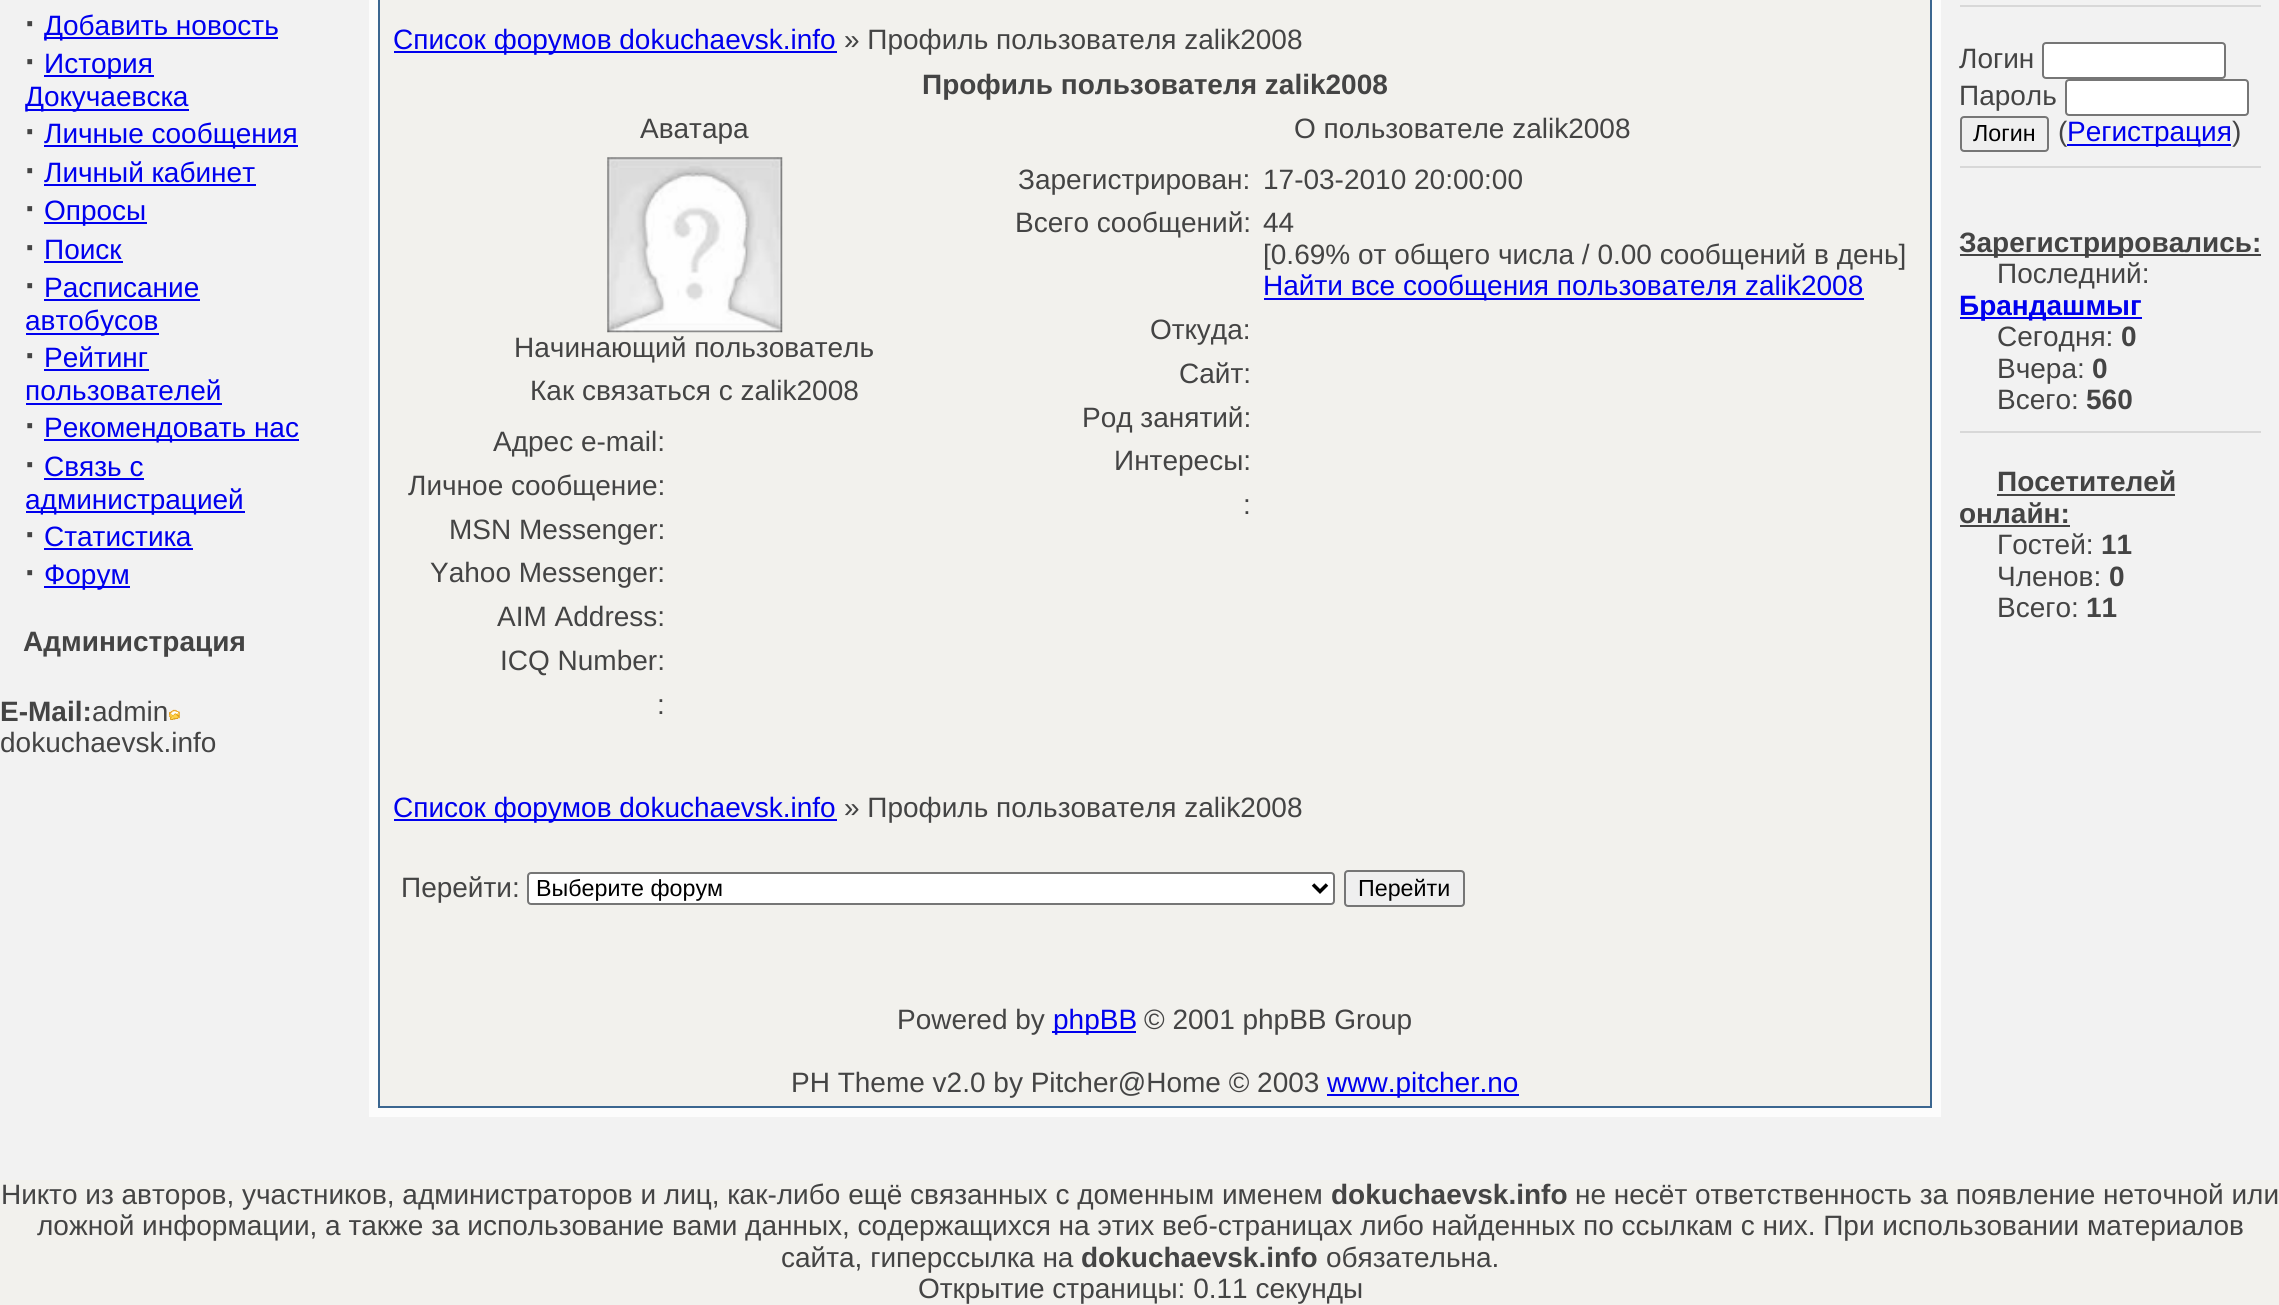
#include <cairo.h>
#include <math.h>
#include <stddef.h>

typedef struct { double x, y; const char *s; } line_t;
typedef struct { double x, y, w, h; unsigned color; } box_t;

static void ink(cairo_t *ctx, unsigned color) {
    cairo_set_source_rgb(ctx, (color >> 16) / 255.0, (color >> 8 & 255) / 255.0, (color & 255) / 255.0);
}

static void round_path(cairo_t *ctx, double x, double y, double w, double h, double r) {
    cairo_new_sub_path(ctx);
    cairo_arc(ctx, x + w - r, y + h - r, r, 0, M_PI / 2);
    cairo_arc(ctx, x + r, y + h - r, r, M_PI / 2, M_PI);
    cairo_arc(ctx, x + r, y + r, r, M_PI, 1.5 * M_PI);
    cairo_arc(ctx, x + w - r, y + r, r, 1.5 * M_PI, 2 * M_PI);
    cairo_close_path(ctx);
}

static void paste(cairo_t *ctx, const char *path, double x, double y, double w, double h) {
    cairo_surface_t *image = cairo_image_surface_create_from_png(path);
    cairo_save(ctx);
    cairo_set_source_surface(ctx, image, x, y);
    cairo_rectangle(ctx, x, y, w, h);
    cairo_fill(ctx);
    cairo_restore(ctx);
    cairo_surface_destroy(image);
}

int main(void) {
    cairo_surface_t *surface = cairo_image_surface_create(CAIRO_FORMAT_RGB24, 2279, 1305);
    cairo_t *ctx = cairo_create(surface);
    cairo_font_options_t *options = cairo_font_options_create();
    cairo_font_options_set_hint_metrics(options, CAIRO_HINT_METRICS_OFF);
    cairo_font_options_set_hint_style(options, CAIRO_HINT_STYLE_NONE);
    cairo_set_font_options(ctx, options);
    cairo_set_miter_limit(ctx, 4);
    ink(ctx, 0xF2F2F2);
    cairo_paint(ctx);
    cairo_select_font_face(ctx, "Liberation Sans", CAIRO_FONT_SLANT_NORMAL, CAIRO_FONT_WEIGHT_BOLD);
    cairo_set_font_size(ctx, 34);
    ink(ctx, 0x444444);
    cairo_move_to(ctx, 25, 35);
    cairo_show_text(ctx, "·");
    ink(ctx, 0x0000EE);
    cairo_rectangle(ctx, 44, 37, 234, 2);
    cairo_fill(ctx);
    cairo_select_font_face(ctx, "Liberation Sans", CAIRO_FONT_SLANT_NORMAL, CAIRO_FONT_WEIGHT_NORMAL);
    cairo_set_font_size(ctx, 28);
    cairo_move_to(ctx, 44, 35);
    cairo_show_text(ctx, "Добавить новость");
    cairo_select_font_face(ctx, "Liberation Sans", CAIRO_FONT_SLANT_NORMAL, CAIRO_FONT_WEIGHT_BOLD);
    cairo_set_font_size(ctx, 34);
    ink(ctx, 0x444444);
    cairo_move_to(ctx, 25, 73);
    cairo_show_text(ctx, "·");
    ink(ctx, 0x0000EE);
    cairo_rectangle(ctx, 44, 75, 110, 2);
    cairo_fill(ctx);
    cairo_select_font_face(ctx, "Liberation Sans", CAIRO_FONT_SLANT_NORMAL, CAIRO_FONT_WEIGHT_NORMAL);
    cairo_set_font_size(ctx, 28);
    cairo_move_to(ctx, 44, 73);
    cairo_show_text(ctx, "История");
    cairo_rectangle(ctx, 26, 109, 163, 2);
    cairo_fill(ctx);
    cairo_move_to(ctx, 25, 106);
    cairo_show_text(ctx, "Докучаевска");
    cairo_select_font_face(ctx, "Liberation Sans", CAIRO_FONT_SLANT_NORMAL, CAIRO_FONT_WEIGHT_BOLD);
    cairo_set_font_size(ctx, 34);
    ink(ctx, 0x444444);
    cairo_move_to(ctx, 25, 143);
    cairo_show_text(ctx, "·");
    ink(ctx, 0x0000EE);
    cairo_rectangle(ctx, 44, 145, 254, 2);
    cairo_fill(ctx);
    cairo_select_font_face(ctx, "Liberation Sans", CAIRO_FONT_SLANT_NORMAL, CAIRO_FONT_WEIGHT_NORMAL);
    cairo_set_font_size(ctx, 28);
    cairo_move_to(ctx, 44, 143);
    cairo_show_text(ctx, "Личные сообщения");
    cairo_select_font_face(ctx, "Liberation Sans", CAIRO_FONT_SLANT_NORMAL, CAIRO_FONT_WEIGHT_BOLD);
    cairo_set_font_size(ctx, 34);
    ink(ctx, 0x444444);
    cairo_move_to(ctx, 25, 182);
    cairo_show_text(ctx, "·");
    cairo_select_font_face(ctx, "Liberation Sans", CAIRO_FONT_SLANT_NORMAL, CAIRO_FONT_WEIGHT_NORMAL);
    cairo_set_font_size(ctx, 28);
    ink(ctx, 0x0000EE);
    cairo_move_to(ctx, 44, 182);
    cairo_show_text(ctx, "Личный кабинет");
    cairo_rectangle(ctx, 44, 184, 212, 2);
    cairo_fill(ctx);
    cairo_select_font_face(ctx, "Liberation Sans", CAIRO_FONT_SLANT_NORMAL, CAIRO_FONT_WEIGHT_BOLD);
    cairo_set_font_size(ctx, 34);
    ink(ctx, 0x444444);
    cairo_move_to(ctx, 25, 220);
    cairo_show_text(ctx, "·");
    ink(ctx, 0x0000EE);
    cairo_rectangle(ctx, 44, 222, 103, 2);
    cairo_fill(ctx);
    cairo_select_font_face(ctx, "Liberation Sans", CAIRO_FONT_SLANT_NORMAL, CAIRO_FONT_WEIGHT_NORMAL);
    cairo_set_font_size(ctx, 28);
    cairo_move_to(ctx, 44, 220);
    cairo_show_text(ctx, "Опросы");
    cairo_select_font_face(ctx, "Liberation Sans", CAIRO_FONT_SLANT_NORMAL, CAIRO_FONT_WEIGHT_BOLD);
    cairo_set_font_size(ctx, 34);
    ink(ctx, 0x444444);
    cairo_move_to(ctx, 25, 259);
    cairo_show_text(ctx, "·");
    cairo_select_font_face(ctx, "Liberation Sans", CAIRO_FONT_SLANT_NORMAL, CAIRO_FONT_WEIGHT_NORMAL);
    cairo_set_font_size(ctx, 28);
    ink(ctx, 0x0000EE);
    cairo_move_to(ctx, 44, 259);
    cairo_show_text(ctx, "Поиск");
    cairo_rectangle(ctx, 44, 261, 79, 2);
    cairo_fill(ctx);
    cairo_select_font_face(ctx, "Liberation Sans", CAIRO_FONT_SLANT_NORMAL, CAIRO_FONT_WEIGHT_BOLD);
    cairo_set_font_size(ctx, 34);
    ink(ctx, 0x444444);
    cairo_move_to(ctx, 25, 297);
    cairo_show_text(ctx, "·");
    cairo_select_font_face(ctx, "Liberation Sans", CAIRO_FONT_SLANT_NORMAL, CAIRO_FONT_WEIGHT_NORMAL);
    cairo_set_font_size(ctx, 28);
    ink(ctx, 0x0000EE);
    cairo_move_to(ctx, 44, 297);
    cairo_show_text(ctx, "Расписание");
    cairo_rectangle(ctx, 44, 299, 156, 2);
    cairo_fill(ctx);
    cairo_rectangle(ctx, 26, 333, 133, 2);
    cairo_fill(ctx);
    cairo_move_to(ctx, 25, 330);
    cairo_show_text(ctx, "автобусов");
    cairo_select_font_face(ctx, "Liberation Sans", CAIRO_FONT_SLANT_NORMAL, CAIRO_FONT_WEIGHT_BOLD);
    cairo_set_font_size(ctx, 34);
    ink(ctx, 0x444444);
    cairo_move_to(ctx, 25, 367);
    cairo_show_text(ctx, "·");
    cairo_select_font_face(ctx, "Liberation Sans", CAIRO_FONT_SLANT_NORMAL, CAIRO_FONT_WEIGHT_NORMAL);
    cairo_set_font_size(ctx, 28);
    ink(ctx, 0x0000EE);
    cairo_move_to(ctx, 44, 367);
    cairo_show_text(ctx, "Рейтинг");
    cairo_rectangle(ctx, 44, 369, 105, 2);
    cairo_fill(ctx);
    cairo_move_to(ctx, 25, 400);
    cairo_show_text(ctx, "пользователей");
    cairo_rectangle(ctx, 26, 403, 196, 2);
    cairo_fill(ctx);
    cairo_select_font_face(ctx, "Liberation Sans", CAIRO_FONT_SLANT_NORMAL, CAIRO_FONT_WEIGHT_BOLD);
    cairo_set_font_size(ctx, 34);
    ink(ctx, 0x444444);
    cairo_move_to(ctx, 25, 437);
    cairo_show_text(ctx, "·");
    ink(ctx, 0x0000EE);
    cairo_rectangle(ctx, 44, 439, 255, 2);
    cairo_fill(ctx);
    cairo_select_font_face(ctx, "Liberation Sans", CAIRO_FONT_SLANT_NORMAL, CAIRO_FONT_WEIGHT_NORMAL);
    cairo_set_font_size(ctx, 28);
    cairo_move_to(ctx, 44, 437);
    cairo_show_text(ctx, "Рекомендовать нас");
    cairo_select_font_face(ctx, "Liberation Sans", CAIRO_FONT_SLANT_NORMAL, CAIRO_FONT_WEIGHT_BOLD);
    cairo_set_font_size(ctx, 34);
    ink(ctx, 0x444444);
    cairo_move_to(ctx, 25, 476);
    cairo_show_text(ctx, "·");
    cairo_select_font_face(ctx, "Liberation Sans", CAIRO_FONT_SLANT_NORMAL, CAIRO_FONT_WEIGHT_NORMAL);
    cairo_set_font_size(ctx, 28);
    ink(ctx, 0x0000EE);
    cairo_move_to(ctx, 44, 476);
    cairo_show_text(ctx, "Связь с");
    cairo_rectangle(ctx, 44, 478, 100, 2);
    cairo_fill(ctx);
    cairo_rectangle(ctx, 26, 511, 219, 2);
    cairo_fill(ctx);
    cairo_move_to(ctx, 25, 509);
    cairo_show_text(ctx, "администрацией");
    cairo_select_font_face(ctx, "Liberation Sans", CAIRO_FONT_SLANT_NORMAL, CAIRO_FONT_WEIGHT_BOLD);
    cairo_set_font_size(ctx, 34);
    ink(ctx, 0x444444);
    cairo_move_to(ctx, 25, 546);
    cairo_show_text(ctx, "·");
    cairo_select_font_face(ctx, "Liberation Sans", CAIRO_FONT_SLANT_NORMAL, CAIRO_FONT_WEIGHT_NORMAL);
    cairo_set_font_size(ctx, 28);
    ink(ctx, 0x0000EE);
    cairo_move_to(ctx, 44, 546);
    cairo_show_text(ctx, "Статистика");
    cairo_rectangle(ctx, 44, 548, 149, 2);
    cairo_fill(ctx);
    cairo_select_font_face(ctx, "Liberation Sans", CAIRO_FONT_SLANT_NORMAL, CAIRO_FONT_WEIGHT_BOLD);
    cairo_set_font_size(ctx, 34);
    ink(ctx, 0x444444);
    cairo_move_to(ctx, 25, 584);
    cairo_show_text(ctx, "·");
    ink(ctx, 0x0000EE);
    cairo_rectangle(ctx, 44, 586, 86, 2);
    cairo_fill(ctx);
    cairo_select_font_face(ctx, "Liberation Sans", CAIRO_FONT_SLANT_NORMAL, CAIRO_FONT_WEIGHT_NORMAL);
    cairo_set_font_size(ctx, 28);
    cairo_move_to(ctx, 44, 584);
    cairo_show_text(ctx, "Форум");
    cairo_select_font_face(ctx, "Liberation Sans", CAIRO_FONT_SLANT_NORMAL, CAIRO_FONT_WEIGHT_BOLD);
    ink(ctx, 0x444444);
    cairo_move_to(ctx, 23, 651);
    cairo_show_text(ctx, "Администрация");
    cairo_move_to(ctx, 0, 721);
    cairo_show_text(ctx, "E-Mail:");
    cairo_select_font_face(ctx, "Liberation Sans", CAIRO_FONT_SLANT_NORMAL, CAIRO_FONT_WEIGHT_NORMAL);
    cairo_move_to(ctx, 92, 721);
    cairo_show_text(ctx, "admin");
    paste(ctx, "media/1.png", 169, 709, 11, 11);
    cairo_move_to(ctx, 0, 752);
    cairo_show_text(ctx, "dokuchaevsk.info");
    {
        static const box_t items[] = {
            {369, 0, 1572, 1117, 0xFCFCFC},
            {378, 0, 1554, 1108, 0x3B6690},
            {380, 0, 1550, 1106, 0xF2F1ED},
            {394, 51, 443, 2, 0x0000EE},
        };
        for (size_t i = 0; i < sizeof items / sizeof *items; i++) {
            ink(ctx, items[i].color);
            cairo_rectangle(ctx, items[i].x, items[i].y, items[i].w, items[i].h);
            cairo_fill(ctx);
        }
    }
    cairo_move_to(ctx, 393, 49);
    cairo_show_text(ctx, "Список форумов dokuchaevsk.info");
    ink(ctx, 0x444444);
    cairo_move_to(ctx, 844, 49);
    cairo_show_text(ctx, "» Профиль пользователя zalik2008");
    cairo_select_font_face(ctx, "Liberation Sans", CAIRO_FONT_SLANT_NORMAL, CAIRO_FONT_WEIGHT_BOLD);
    cairo_move_to(ctx, 922, 94);
    cairo_show_text(ctx, "Профиль пользователя zalik2008");
    cairo_select_font_face(ctx, "Liberation Sans", CAIRO_FONT_SLANT_NORMAL, CAIRO_FONT_WEIGHT_NORMAL);
    cairo_move_to(ctx, 640, 138);
    cairo_show_text(ctx, "Аватара");
    cairo_move_to(ctx, 1294, 138);
    cairo_show_text(ctx, "О пользователе zalik2008");
    paste(ctx, "media/2.png", 607, 157, 176, 176);
    {
        static const line_t items[] = {
            {514, 357, "Начинающий пользователь"},
            {1018, 189, "Зарегистрирован:"},
            {1263, 189, "17-03-2010 20:00:00"},
            {1015, 232, "Всего сообщений:"},
            {1263, 232, "44"},
            {1263, 264, "[0.69% от общего числа / 0.00 сообщений в день]"},
        };
        for (size_t i = 0; i < sizeof items / sizeof *items; i++) {
            cairo_move_to(ctx, items[i].x, items[i].y);
            cairo_show_text(ctx, items[i].s);
        }
    }
    ink(ctx, 0x0000EE);
    cairo_rectangle(ctx, 1264, 298, 600, 2);
    cairo_fill(ctx);
    cairo_move_to(ctx, 1263, 295);
    cairo_show_text(ctx, "Найти все сообщения пользователя zalik2008");
    ink(ctx, 0x444444);
    {
        static const line_t items[] = {
            {1150, 339, "Откуда:"},
            {1179, 383, "Сайт:"},
            {1082, 427, "Род занятий:"},
            {1114, 470, "Интересы:"},
            {1243, 514, ":"},
            {530, 400, "Как связаться с zalik2008"},
            {493, 451, "Адрес e-mail:"},
            {408, 495, "Личное сообщение:"},
            {449, 539, "MSN Messenger:"},
            {430, 582, "Yahoo Messenger:"},
            {497, 626, "AIM Address:"},
            {500, 670, "ICQ Number:"},
            {657, 714, ":"},
        };
        for (size_t i = 0; i < sizeof items / sizeof *items; i++) {
            cairo_move_to(ctx, items[i].x, items[i].y);
            cairo_show_text(ctx, items[i].s);
        }
    }
    ink(ctx, 0x0000EE);
    cairo_rectangle(ctx, 394, 819, 443, 2);
    cairo_fill(ctx);
    cairo_move_to(ctx, 393, 817);
    cairo_show_text(ctx, "Список форумов dokuchaevsk.info");
    ink(ctx, 0x444444);
    cairo_move_to(ctx, 844, 817);
    cairo_show_text(ctx, "» Профиль пользователя zalik2008");
    cairo_move_to(ctx, 401, 897);
    cairo_show_text(ctx, "Перейти:");
    ink(ctx, 0xFFFFFF);
    round_path(ctx, 528, 873, 806, 31, 3);
    cairo_fill_preserve(ctx);
    ink(ctx, 0x767676);
    cairo_stroke(ctx);
    cairo_new_path(ctx);
    cairo_move_to(ctx, 1313, 884.5);
    cairo_line_to(ctx, 1320, 891.5);
    cairo_line_to(ctx, 1327, 884.5);
    ink(ctx, 0x000000);
    cairo_set_line_width(ctx, 3.5);
    cairo_stroke(ctx);
    cairo_set_font_size(ctx, 23.25);
    cairo_move_to(ctx, 536, 896);
    cairo_show_text(ctx, "Выберите форум");
    ink(ctx, 0xEFEFEF);
    round_path(ctx, 1345, 871, 119, 35, 3);
    cairo_fill_preserve(ctx);
    ink(ctx, 0x767676);
    cairo_set_line_width(ctx, 2);
    cairo_stroke(ctx);
    ink(ctx, 0x000000);
    cairo_move_to(ctx, 1358, 896);
    cairo_show_text(ctx, "Перейти");
    cairo_set_font_size(ctx, 28);
    ink(ctx, 0x444444);
    cairo_move_to(ctx, 897, 1029);
    cairo_show_text(ctx, "Powered by");
    ink(ctx, 0x0000EE);
    cairo_rectangle(ctx, 1052, 1031, 84, 2);
    cairo_fill(ctx);
    cairo_move_to(ctx, 1053, 1029);
    cairo_show_text(ctx, "phpBB");
    ink(ctx, 0x444444);
    cairo_move_to(ctx, 1144, 1029);
    cairo_show_text(ctx, "© 2001 phpBB Group");
    cairo_move_to(ctx, 791, 1092);
    cairo_show_text(ctx, "PH Theme v2.0 by Pitcher@Home © 2003");
    ink(ctx, 0x0000EE);
    cairo_rectangle(ctx, 1327, 1094, 192, 2);
    cairo_fill(ctx);
    cairo_move_to(ctx, 1327, 1092);
    cairo_show_text(ctx, "www.pitcher.no");
    ink(ctx, 0xD8D8D8);
    cairo_rectangle(ctx, 1960, 5, 301, 2);
    cairo_fill(ctx);
    ink(ctx, 0x444444);
    cairo_move_to(ctx, 1959, 68);
    cairo_show_text(ctx, "Логин");
    ink(ctx, 0xFFFFFF);
    round_path(ctx, 2043, 43, 182, 35, 3);
    cairo_fill_preserve(ctx);
    ink(ctx, 0x767676);
    cairo_stroke(ctx);
    ink(ctx, 0x444444);
    cairo_move_to(ctx, 1959, 105);
    cairo_show_text(ctx, "Пароль");
    ink(ctx, 0xFFFFFF);
    round_path(ctx, 2066, 80, 182, 35, 3);
    cairo_fill_preserve(ctx);
    ink(ctx, 0x767676);
    cairo_stroke(ctx);
    ink(ctx, 0xEFEFEF);
    round_path(ctx, 1961, 117, 87, 34, 3);
    cairo_fill_preserve(ctx);
    ink(ctx, 0x767676);
    cairo_stroke(ctx);
    cairo_set_font_size(ctx, 23.25);
    ink(ctx, 0x000000);
    cairo_move_to(ctx, 1973, 141);
    cairo_show_text(ctx, "Логин");
    cairo_set_font_size(ctx, 28);
    ink(ctx, 0x444444);
    cairo_move_to(ctx, 2058, 141);
    cairo_show_text(ctx, "(");
    ink(ctx, 0x0000EE);
    cairo_rectangle(ctx, 2067, 144, 164, 2);
    cairo_fill(ctx);
    cairo_move_to(ctx, 2067, 141);
    cairo_show_text(ctx, "Регистрация");
    ink(ctx, 0x444444);
    cairo_move_to(ctx, 2232, 141);
    cairo_show_text(ctx, ")");
    ink(ctx, 0xD8D8D8);
    cairo_rectangle(ctx, 1960, 166, 301, 2);
    cairo_fill(ctx);
    ink(ctx, 0x444444);
    cairo_rectangle(ctx, 1960, 254, 301, 2);
    cairo_fill(ctx);
    cairo_select_font_face(ctx, "Liberation Sans", CAIRO_FONT_SLANT_NORMAL, CAIRO_FONT_WEIGHT_BOLD);
    cairo_move_to(ctx, 1959, 252);
    cairo_show_text(ctx, "Зарегистрировались:");
    cairo_select_font_face(ctx, "Liberation Sans", CAIRO_FONT_SLANT_NORMAL, CAIRO_FONT_WEIGHT_NORMAL);
    cairo_move_to(ctx, 1997, 283);
    cairo_show_text(ctx, "Последний:");
    ink(ctx, 0x0000EE);
    cairo_rectangle(ctx, 1960, 317, 182, 2);
    cairo_fill(ctx);
    cairo_select_font_face(ctx, "Liberation Sans", CAIRO_FONT_SLANT_NORMAL, CAIRO_FONT_WEIGHT_BOLD);
    cairo_move_to(ctx, 1959, 315);
    cairo_show_text(ctx, "Брандашмыг");
    cairo_select_font_face(ctx, "Liberation Sans", CAIRO_FONT_SLANT_NORMAL, CAIRO_FONT_WEIGHT_NORMAL);
    ink(ctx, 0x444444);
    cairo_move_to(ctx, 1997, 346);
    cairo_show_text(ctx, "Сегодня:");
    cairo_select_font_face(ctx, "Liberation Sans", CAIRO_FONT_SLANT_NORMAL, CAIRO_FONT_WEIGHT_BOLD);
    cairo_move_to(ctx, 2121, 346);
    cairo_show_text(ctx, "0");
    cairo_select_font_face(ctx, "Liberation Sans", CAIRO_FONT_SLANT_NORMAL, CAIRO_FONT_WEIGHT_NORMAL);
    cairo_move_to(ctx, 1997, 378);
    cairo_show_text(ctx, "Вчера:");
    cairo_select_font_face(ctx, "Liberation Sans", CAIRO_FONT_SLANT_NORMAL, CAIRO_FONT_WEIGHT_BOLD);
    cairo_move_to(ctx, 2092, 378);
    cairo_show_text(ctx, "0");
    cairo_select_font_face(ctx, "Liberation Sans", CAIRO_FONT_SLANT_NORMAL, CAIRO_FONT_WEIGHT_NORMAL);
    cairo_move_to(ctx, 1997, 409);
    cairo_show_text(ctx, "Всего:");
    cairo_select_font_face(ctx, "Liberation Sans", CAIRO_FONT_SLANT_NORMAL, CAIRO_FONT_WEIGHT_BOLD);
    cairo_move_to(ctx, 2086, 409);
    cairo_show_text(ctx, "560");
    ink(ctx, 0xD8D8D8);
    cairo_rectangle(ctx, 1960, 431, 301, 2);
    cairo_fill(ctx);
    ink(ctx, 0x444444);
    cairo_move_to(ctx, 1997, 491);
    cairo_show_text(ctx, "Посетителей");
    cairo_rectangle(ctx, 1997, 494, 178, 2);
    cairo_fill(ctx);
    cairo_move_to(ctx, 1959, 523);
    cairo_show_text(ctx, "онлайн:");
    cairo_rectangle(ctx, 1960, 525, 110, 2);
    cairo_fill(ctx);
    cairo_select_font_face(ctx, "Liberation Sans", CAIRO_FONT_SLANT_NORMAL, CAIRO_FONT_WEIGHT_NORMAL);
    cairo_move_to(ctx, 1997, 554);
    cairo_show_text(ctx, "Гостей:");
    cairo_select_font_face(ctx, "Liberation Sans", CAIRO_FONT_SLANT_NORMAL, CAIRO_FONT_WEIGHT_BOLD);
    cairo_move_to(ctx, 2101, 554);
    cairo_show_text(ctx, "11");
    cairo_select_font_face(ctx, "Liberation Sans", CAIRO_FONT_SLANT_NORMAL, CAIRO_FONT_WEIGHT_NORMAL);
    cairo_move_to(ctx, 1997, 586);
    cairo_show_text(ctx, "Членов:");
    cairo_select_font_face(ctx, "Liberation Sans", CAIRO_FONT_SLANT_NORMAL, CAIRO_FONT_WEIGHT_BOLD);
    cairo_move_to(ctx, 2109, 586);
    cairo_show_text(ctx, "0");
    cairo_select_font_face(ctx, "Liberation Sans", CAIRO_FONT_SLANT_NORMAL, CAIRO_FONT_WEIGHT_NORMAL);
    cairo_move_to(ctx, 1997, 617);
    cairo_show_text(ctx, "Всего:");
    cairo_select_font_face(ctx, "Liberation Sans", CAIRO_FONT_SLANT_NORMAL, CAIRO_FONT_WEIGHT_BOLD);
    cairo_move_to(ctx, 2086, 617);
    cairo_show_text(ctx, "11");
    ink(ctx, 0xF2F1ED);
    cairo_rectangle(ctx, 0, 1180, 2279, 125);
    cairo_fill(ctx);
    cairo_select_font_face(ctx, "Liberation Sans", CAIRO_FONT_SLANT_NORMAL, CAIRO_FONT_WEIGHT_NORMAL);
    ink(ctx, 0x444444);
    cairo_move_to(ctx, 1, 1204);
    cairo_show_text(ctx, "Никто из авторов, участников, администраторов и лиц, как-либо ещё связанных с доменным именем");
    cairo_select_font_face(ctx, "Liberation Sans", CAIRO_FONT_SLANT_NORMAL, CAIRO_FONT_WEIGHT_BOLD);
    cairo_move_to(ctx, 1331, 1204);
    cairo_show_text(ctx, "dokuchaevsk.info");
    cairo_select_font_face(ctx, "Liberation Sans", CAIRO_FONT_SLANT_NORMAL, CAIRO_FONT_WEIGHT_NORMAL);
    {
        static const line_t items[] = {
            {1575, 1204, "не несёт ответственность за появление неточной или"},
            {37, 1235, "ложной информации, а также за использование вами данных, содержащихся на этих веб-страницах либо найденных по ссылкам с них. При использовании материалов"},
            {781, 1267, "сайта, гиперссылка на"},
        };
        for (size_t i = 0; i < sizeof items / sizeof *items; i++) {
            cairo_move_to(ctx, items[i].x, items[i].y);
            cairo_show_text(ctx, items[i].s);
        }
    }
    cairo_select_font_face(ctx, "Liberation Sans", CAIRO_FONT_SLANT_NORMAL, CAIRO_FONT_WEIGHT_BOLD);
    cairo_move_to(ctx, 1081, 1267);
    cairo_show_text(ctx, "dokuchaevsk.info");
    cairo_select_font_face(ctx, "Liberation Sans", CAIRO_FONT_SLANT_NORMAL, CAIRO_FONT_WEIGHT_NORMAL);
    cairo_move_to(ctx, 1326, 1267);
    cairo_show_text(ctx, "обязательна.");
    cairo_move_to(ctx, 918, 1298);
    cairo_show_text(ctx, "Открытие страницы: 0.11 секунды");
    cairo_surface_write_to_png(surface, "image.png");
    cairo_font_options_destroy(options);
    cairo_destroy(ctx);
    cairo_surface_destroy(surface);
    return 0;
}
